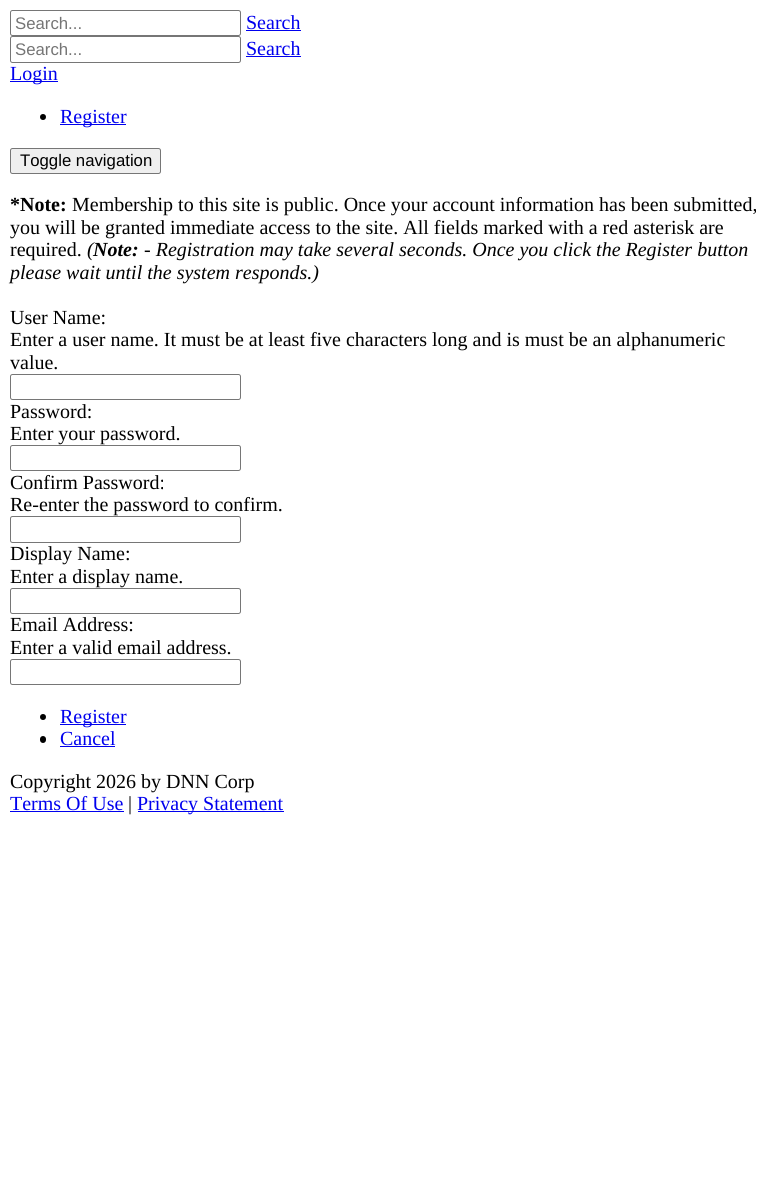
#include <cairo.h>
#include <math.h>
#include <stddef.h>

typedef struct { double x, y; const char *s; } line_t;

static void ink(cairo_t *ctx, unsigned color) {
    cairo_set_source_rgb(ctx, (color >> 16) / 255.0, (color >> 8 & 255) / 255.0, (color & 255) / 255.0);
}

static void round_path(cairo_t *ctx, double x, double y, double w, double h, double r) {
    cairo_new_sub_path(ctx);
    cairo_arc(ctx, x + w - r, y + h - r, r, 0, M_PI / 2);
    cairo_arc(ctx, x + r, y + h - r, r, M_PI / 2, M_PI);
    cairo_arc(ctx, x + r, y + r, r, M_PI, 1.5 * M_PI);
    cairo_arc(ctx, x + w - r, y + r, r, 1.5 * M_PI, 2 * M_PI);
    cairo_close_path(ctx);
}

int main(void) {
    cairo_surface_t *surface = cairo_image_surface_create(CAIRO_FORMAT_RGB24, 773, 1193);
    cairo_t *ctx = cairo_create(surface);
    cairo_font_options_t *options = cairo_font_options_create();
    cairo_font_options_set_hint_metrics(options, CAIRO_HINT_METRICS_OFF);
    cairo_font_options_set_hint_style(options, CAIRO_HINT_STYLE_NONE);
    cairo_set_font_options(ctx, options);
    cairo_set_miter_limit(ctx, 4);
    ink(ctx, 0xFFFFFF);
    cairo_paint(ctx);
    round_path(ctx, 10.5, 10.5, 230, 25, 2);
    ink(ctx, 0x767676);
    cairo_set_line_width(ctx, 1);
    cairo_stroke(ctx);
    cairo_select_font_face(ctx, "Liberation Sans", CAIRO_FONT_SLANT_NORMAL, CAIRO_FONT_WEIGHT_NORMAL);
    cairo_set_font_size(ctx, 16.75);
    ink(ctx, 0x757575);
    cairo_move_to(ctx, 15, 29);
    cairo_show_text(ctx, "Search...");
    cairo_select_font_face(ctx, "Liberation Serif", CAIRO_FONT_SLANT_NORMAL, CAIRO_FONT_WEIGHT_NORMAL);
    cairo_set_font_size(ctx, 20);
    ink(ctx, 0x0000EE);
    cairo_move_to(ctx, 246, 29);
    cairo_show_text(ctx, "Search");
    cairo_rectangle(ctx, 246, 30, 55, 1);
    cairo_fill(ctx);
    round_path(ctx, 10.5, 36.5, 230, 26, 2);
    ink(ctx, 0x767676);
    cairo_stroke(ctx);
    cairo_select_font_face(ctx, "Liberation Sans", CAIRO_FONT_SLANT_NORMAL, CAIRO_FONT_WEIGHT_NORMAL);
    cairo_set_font_size(ctx, 16.75);
    ink(ctx, 0x757575);
    cairo_move_to(ctx, 15, 55);
    cairo_show_text(ctx, "Search...");
    cairo_select_font_face(ctx, "Liberation Serif", CAIRO_FONT_SLANT_NORMAL, CAIRO_FONT_WEIGHT_NORMAL);
    cairo_set_font_size(ctx, 20);
    ink(ctx, 0x0000EE);
    cairo_move_to(ctx, 246, 55);
    cairo_show_text(ctx, "Search");
    cairo_rectangle(ctx, 246, 56, 55, 1);
    cairo_fill(ctx);
    cairo_rectangle(ctx, 10, 81, 48, 1);
    cairo_fill(ctx);
    cairo_move_to(ctx, 10, 80);
    cairo_show_text(ctx, "Login");
    ink(ctx, 0x000000);
    cairo_new_path(ctx);
    cairo_arc(ctx, 43, 117, 3, 0, 2 * M_PI);
    cairo_fill(ctx);
    ink(ctx, 0x0000EE);
    cairo_rectangle(ctx, 60, 124, 66, 1);
    cairo_fill(ctx);
    cairo_move_to(ctx, 60, 123);
    cairo_show_text(ctx, "Register");
    ink(ctx, 0xEFEFEF);
    round_path(ctx, 10.5, 148.5, 150, 25, 2);
    cairo_fill_preserve(ctx);
    ink(ctx, 0x767676);
    cairo_stroke(ctx);
    cairo_select_font_face(ctx, "Liberation Sans", CAIRO_FONT_SLANT_NORMAL, CAIRO_FONT_WEIGHT_NORMAL);
    cairo_set_font_size(ctx, 16.75);
    ink(ctx, 0x000000);
    cairo_move_to(ctx, 20, 166);
    cairo_show_text(ctx, "Toggle navigation");
    cairo_select_font_face(ctx, "Liberation Serif", CAIRO_FONT_SLANT_NORMAL, CAIRO_FONT_WEIGHT_BOLD);
    cairo_set_font_size(ctx, 20);
    cairo_move_to(ctx, 10, 211);
    cairo_show_text(ctx, "*Note:");
    cairo_select_font_face(ctx, "Liberation Serif", CAIRO_FONT_SLANT_NORMAL, CAIRO_FONT_WEIGHT_NORMAL);
    {
        static const line_t items[] = {
            {72, 211, "Membership to this site is public. Once your account information has been submitted,"},
            {10, 234, "you will be granted immediate access to the site. All fields marked with a red asterisk are"},
            {10, 256, "required."},
        };
        for (size_t i = 0; i < sizeof items / sizeof *items; i++) {
            cairo_move_to(ctx, items[i].x, items[i].y);
            cairo_show_text(ctx, items[i].s);
        }
    }
    cairo_select_font_face(ctx, "Liberation Serif", CAIRO_FONT_SLANT_ITALIC, CAIRO_FONT_WEIGHT_NORMAL);
    cairo_move_to(ctx, 87, 256);
    cairo_show_text(ctx, "(");
    cairo_select_font_face(ctx, "Liberation Serif", CAIRO_FONT_SLANT_ITALIC, CAIRO_FONT_WEIGHT_BOLD);
    cairo_move_to(ctx, 93, 256);
    cairo_show_text(ctx, "Note:");
    cairo_select_font_face(ctx, "Liberation Serif", CAIRO_FONT_SLANT_ITALIC, CAIRO_FONT_WEIGHT_NORMAL);
    cairo_move_to(ctx, 144, 256);
    cairo_show_text(ctx, "- Registration may take several seconds. Once you click the Register button");
    cairo_move_to(ctx, 10, 279);
    cairo_show_text(ctx, "please wait until the system responds.)");
    cairo_select_font_face(ctx, "Liberation Serif", CAIRO_FONT_SLANT_NORMAL, CAIRO_FONT_WEIGHT_NORMAL);
    {
        static const line_t items[] = {
            {10, 324, "User Name:"},
            {10, 346, "Enter a user name. It must be at least five characters long and is must be an alphanumeric"},
            {10, 369, "value."},
        };
        for (size_t i = 0; i < sizeof items / sizeof *items; i++) {
            cairo_move_to(ctx, items[i].x, items[i].y);
            cairo_show_text(ctx, items[i].s);
        }
    }
    round_path(ctx, 10.5, 374.5, 230, 25, 2);
    ink(ctx, 0x767676);
    cairo_stroke(ctx);
    ink(ctx, 0x000000);
    cairo_move_to(ctx, 10, 418);
    cairo_show_text(ctx, "Password:");
    cairo_move_to(ctx, 10, 440);
    cairo_show_text(ctx, "Enter your password.");
    round_path(ctx, 10.5, 445.5, 230, 25, 2);
    ink(ctx, 0x767676);
    cairo_stroke(ctx);
    ink(ctx, 0x000000);
    cairo_move_to(ctx, 10, 489);
    cairo_show_text(ctx, "Confirm Password:");
    cairo_move_to(ctx, 10, 511);
    cairo_show_text(ctx, "Re-enter the password to confirm.");
    round_path(ctx, 10.5, 516.5, 230, 26, 2);
    ink(ctx, 0x767676);
    cairo_stroke(ctx);
    ink(ctx, 0x000000);
    cairo_move_to(ctx, 10, 560);
    cairo_show_text(ctx, "Display Name:");
    cairo_move_to(ctx, 10, 583);
    cairo_show_text(ctx, "Enter a display name.");
    round_path(ctx, 10.5, 588.5, 230, 25, 2);
    ink(ctx, 0x767676);
    cairo_stroke(ctx);
    ink(ctx, 0x000000);
    cairo_move_to(ctx, 10, 631);
    cairo_show_text(ctx, "Email Address:");
    cairo_move_to(ctx, 10, 654);
    cairo_show_text(ctx, "Enter a valid email address.");
    round_path(ctx, 10.5, 659.5, 230, 25, 2);
    ink(ctx, 0x767676);
    cairo_stroke(ctx);
    ink(ctx, 0x000000);
    cairo_arc(ctx, 43, 717, 3, 0, 2 * M_PI);
    cairo_fill(ctx);
    ink(ctx, 0x0000EE);
    cairo_rectangle(ctx, 60, 724, 66, 1);
    cairo_fill(ctx);
    cairo_move_to(ctx, 60, 723);
    cairo_show_text(ctx, "Register");
    ink(ctx, 0x000000);
    round_path(ctx, 40, 736, 6, 7, 3);
    cairo_fill(ctx);
    ink(ctx, 0x0000EE);
    cairo_move_to(ctx, 60, 745);
    cairo_show_text(ctx, "Cancel");
    cairo_rectangle(ctx, 60, 746, 55, 1);
    cairo_fill(ctx);
    ink(ctx, 0x000000);
    cairo_move_to(ctx, 10, 788);
    cairo_show_text(ctx, "Copyright 2026 by DNN Corp");
    ink(ctx, 0x0000EE);
    cairo_move_to(ctx, 10, 810);
    cairo_show_text(ctx, "Terms Of Use");
    cairo_rectangle(ctx, 10, 811, 114, 1);
    cairo_fill(ctx);
    ink(ctx, 0x000000);
    cairo_move_to(ctx, 128, 810);
    cairo_show_text(ctx, "|");
    ink(ctx, 0x0000EE);
    cairo_rectangle(ctx, 138, 811, 146, 1);
    cairo_fill(ctx);
    cairo_move_to(ctx, 137, 810);
    cairo_show_text(ctx, "Privacy Statement");
    cairo_surface_write_to_png(surface, "image.png");
    cairo_font_options_destroy(options);
    cairo_destroy(ctx);
    cairo_surface_destroy(surface);
    return 0;
}
